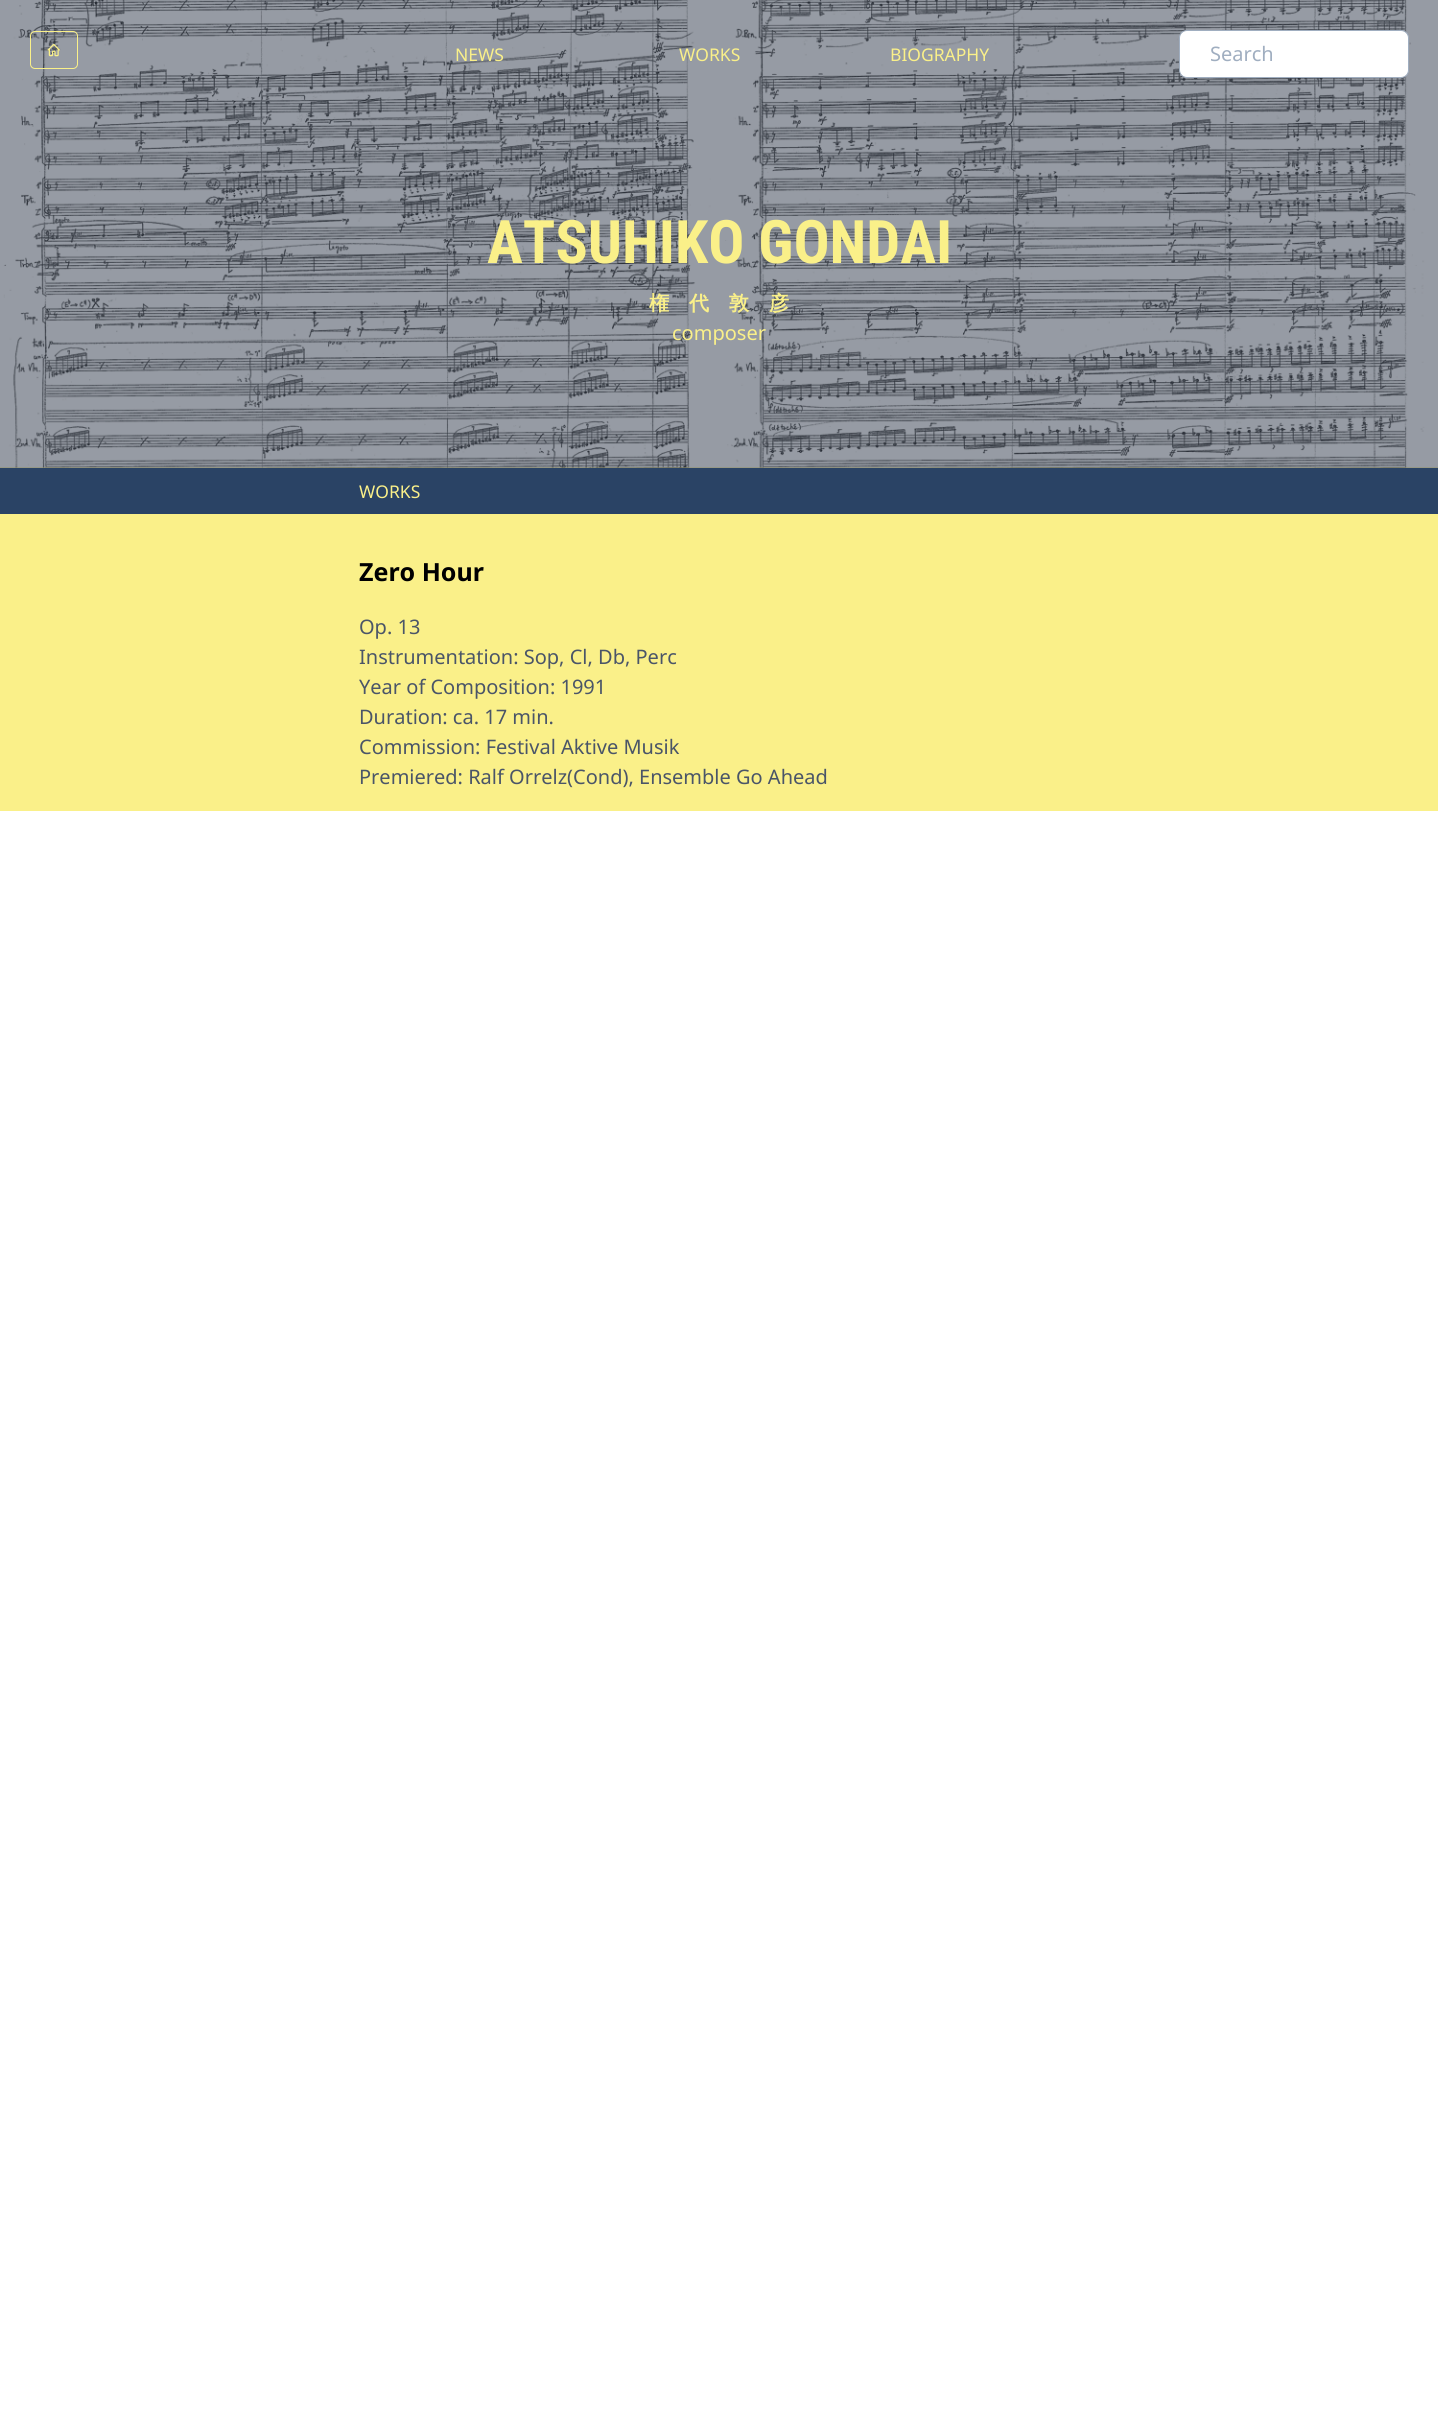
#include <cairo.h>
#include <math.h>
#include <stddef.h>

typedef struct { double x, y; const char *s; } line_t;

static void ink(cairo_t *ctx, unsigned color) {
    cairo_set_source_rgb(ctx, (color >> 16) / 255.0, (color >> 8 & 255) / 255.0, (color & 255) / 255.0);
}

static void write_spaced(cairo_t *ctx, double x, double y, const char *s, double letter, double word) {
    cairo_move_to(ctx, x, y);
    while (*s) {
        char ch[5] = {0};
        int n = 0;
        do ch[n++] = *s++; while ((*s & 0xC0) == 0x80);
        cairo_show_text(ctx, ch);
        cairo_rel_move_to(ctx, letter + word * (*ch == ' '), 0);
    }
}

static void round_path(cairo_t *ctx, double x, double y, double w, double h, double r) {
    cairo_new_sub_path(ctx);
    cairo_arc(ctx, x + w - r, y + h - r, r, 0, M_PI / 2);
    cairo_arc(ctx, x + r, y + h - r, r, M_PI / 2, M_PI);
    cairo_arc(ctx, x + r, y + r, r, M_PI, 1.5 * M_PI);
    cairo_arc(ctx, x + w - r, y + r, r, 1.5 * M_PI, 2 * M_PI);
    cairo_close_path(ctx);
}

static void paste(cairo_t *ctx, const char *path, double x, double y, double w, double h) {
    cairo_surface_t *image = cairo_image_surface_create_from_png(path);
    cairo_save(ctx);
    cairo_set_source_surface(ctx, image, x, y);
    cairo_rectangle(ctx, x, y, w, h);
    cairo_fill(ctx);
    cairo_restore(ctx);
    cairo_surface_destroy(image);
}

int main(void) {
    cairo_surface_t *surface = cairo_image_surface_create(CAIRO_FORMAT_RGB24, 1438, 2434);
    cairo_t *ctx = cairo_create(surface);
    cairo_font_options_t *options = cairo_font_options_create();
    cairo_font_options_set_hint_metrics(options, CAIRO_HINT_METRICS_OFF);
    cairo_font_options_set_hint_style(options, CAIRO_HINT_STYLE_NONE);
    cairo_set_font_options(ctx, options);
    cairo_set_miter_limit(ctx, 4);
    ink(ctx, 0xFFFFFF);
    cairo_paint(ctx);
    ink(ctx, 0xFAF089);
    cairo_rectangle(ctx, 0, 514, 1438, 297);
    cairo_fill(ctx);
    ink(ctx, 0x949469);
    cairo_rectangle(ctx, 0, 467, 1438, 1);
    cairo_fill(ctx);
    paste(ctx, "media/1.png", 0, 0, 1438, 468);
    round_path(ctx, 30.5, 31.5, 47, 37, 4.5);
    ink(ctx, 0xFAF089);
    cairo_set_line_width(ctx, 1);
    cairo_stroke(ctx);
    paste(ctx, "media/2.png", 47, 43, 13, 14);
    cairo_select_font_face(ctx, "Noto Sans", CAIRO_FONT_SLANT_NORMAL, CAIRO_FONT_WEIGHT_NORMAL);
    cairo_set_font_size(ctx, 17.5);
    {
        static const line_t items[] = {
            {455, 61, "NEWS"},
            {679, 61, "WORKS"},
            {890, 61, "BIOGRAPHY"},
        };
        for (size_t i = 0; i < sizeof items / sizeof *items; i++) {
            cairo_move_to(ctx, items[i].x, items[i].y);
            cairo_show_text(ctx, items[i].s);
        }
    }
    ink(ctx, 0xFFFFFF);
    round_path(ctx, 1179.5, 30.5, 229, 47, 7.5);
    cairo_fill_preserve(ctx);
    ink(ctx, 0xA0AEC0);
    cairo_stroke(ctx);
    cairo_set_font_size(ctx, 20);
    cairo_move_to(ctx, 1210, 61);
    cairo_show_text(ctx, "Search");
    cairo_select_font_face(ctx, "Roboto Condensed", CAIRO_FONT_SLANT_NORMAL, CAIRO_FONT_WEIGHT_BOLD);
    cairo_set_font_size(ctx, 60);
    ink(ctx, 0xFAF089);
    cairo_move_to(ctx, 487, 263);
    cairo_show_text(ctx, "ATSUHIKO GONDAI");
    cairo_select_font_face(ctx, "WenQuanYi Zen Hei", CAIRO_FONT_SLANT_NORMAL, CAIRO_FONT_WEIGHT_BOLD);
    cairo_set_font_size(ctx, 20);
    write_spaced(ctx, 649, 310, "権代敦彦", 20, 0);
    cairo_select_font_face(ctx, "Noto Sans", CAIRO_FONT_SLANT_NORMAL, CAIRO_FONT_WEIGHT_NORMAL);
    cairo_move_to(ctx, 672, 340);
    cairo_show_text(ctx, "composer");
    ink(ctx, 0x2A4365);
    cairo_rectangle(ctx, 0, 468, 1438, 46);
    cairo_fill(ctx);
    cairo_set_font_size(ctx, 17.5);
    ink(ctx, 0xFAF089);
    cairo_move_to(ctx, 359, 498);
    cairo_show_text(ctx, "WORKS");
    cairo_select_font_face(ctx, "Noto Sans", CAIRO_FONT_SLANT_NORMAL, CAIRO_FONT_WEIGHT_BOLD);
    cairo_set_font_size(ctx, 25);
    ink(ctx, 0x000000);
    cairo_move_to(ctx, 359, 581);
    cairo_show_text(ctx, "Zero Hour");
    cairo_select_font_face(ctx, "Noto Sans", CAIRO_FONT_SLANT_NORMAL, CAIRO_FONT_WEIGHT_NORMAL);
    cairo_set_font_size(ctx, 20);
    ink(ctx, 0x4A5568);
    {
        static const line_t items[] = {
            {359, 634, "Op. 13"},
            {359, 664, "Instrumentation: Sop, Cl, Db, Perc"},
            {359, 694, "Year of Composition: 1991"},
            {359, 724, "Duration: ca. 17 min."},
            {359, 754, "Commission: Festival Aktive Musik"},
            {359, 784, "Premiered: Ralf Orrelz(Cond), Ensemble Go Ahead"},
        };
        for (size_t i = 0; i < sizeof items / sizeof *items; i++) {
            cairo_move_to(ctx, items[i].x, items[i].y);
            cairo_show_text(ctx, items[i].s);
        }
    }
    cairo_surface_write_to_png(surface, "image.png");
    cairo_font_options_destroy(options);
    cairo_destroy(ctx);
    cairo_surface_destroy(surface);
    return 0;
}
